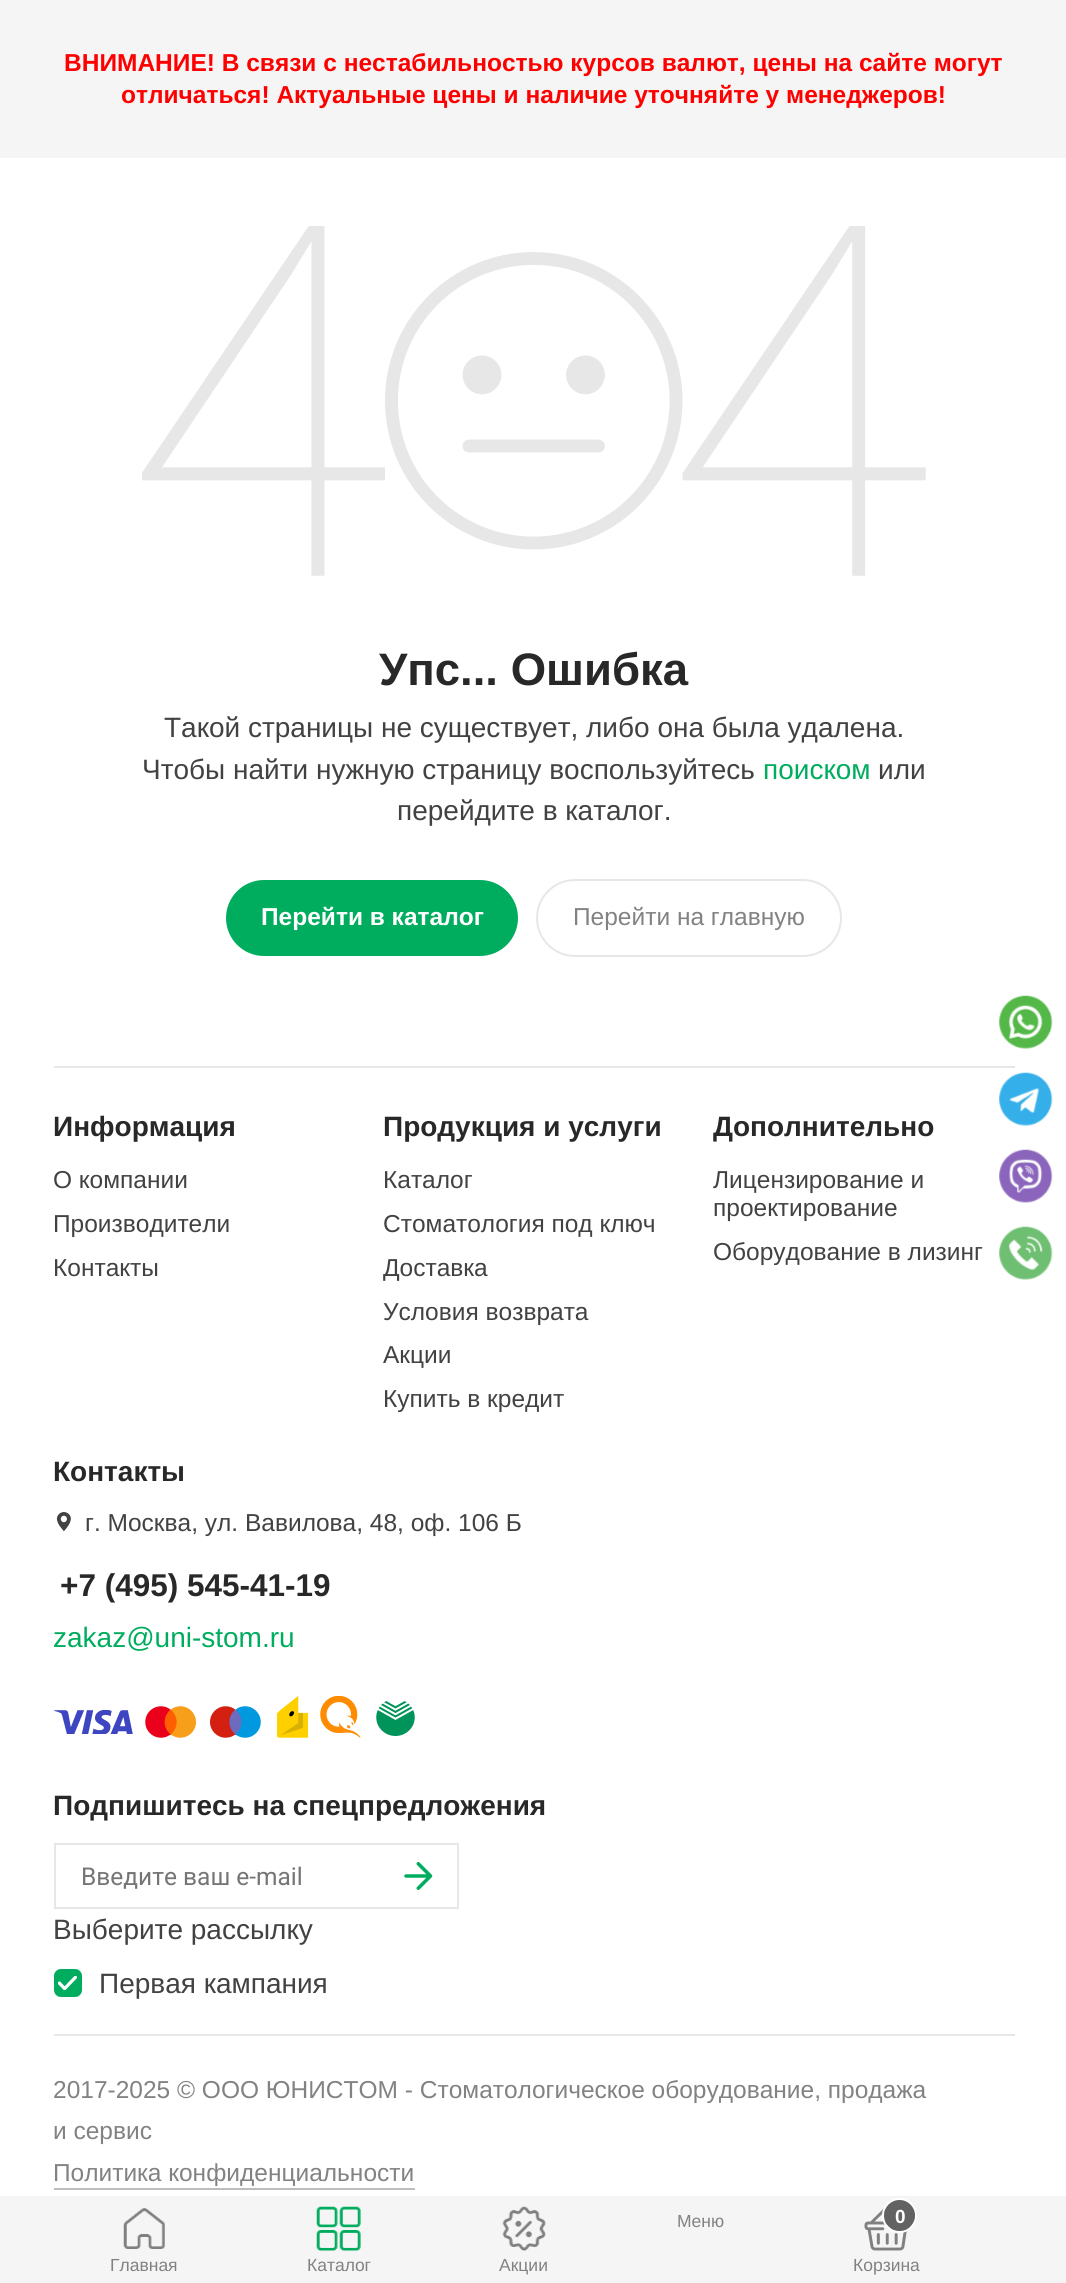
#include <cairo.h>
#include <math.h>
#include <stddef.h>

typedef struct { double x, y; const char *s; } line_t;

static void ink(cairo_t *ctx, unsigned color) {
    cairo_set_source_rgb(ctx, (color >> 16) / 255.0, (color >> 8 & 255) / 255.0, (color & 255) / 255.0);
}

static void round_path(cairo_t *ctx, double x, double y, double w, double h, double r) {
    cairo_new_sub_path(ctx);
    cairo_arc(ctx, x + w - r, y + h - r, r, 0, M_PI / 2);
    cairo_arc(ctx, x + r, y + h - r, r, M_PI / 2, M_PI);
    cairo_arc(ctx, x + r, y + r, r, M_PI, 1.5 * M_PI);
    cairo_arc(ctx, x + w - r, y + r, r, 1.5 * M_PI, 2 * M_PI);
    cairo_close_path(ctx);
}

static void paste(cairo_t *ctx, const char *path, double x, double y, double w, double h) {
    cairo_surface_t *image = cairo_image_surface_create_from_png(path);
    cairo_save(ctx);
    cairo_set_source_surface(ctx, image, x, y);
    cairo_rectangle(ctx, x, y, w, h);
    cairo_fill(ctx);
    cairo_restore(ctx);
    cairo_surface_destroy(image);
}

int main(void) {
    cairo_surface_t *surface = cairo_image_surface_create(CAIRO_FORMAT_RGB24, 1066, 2283);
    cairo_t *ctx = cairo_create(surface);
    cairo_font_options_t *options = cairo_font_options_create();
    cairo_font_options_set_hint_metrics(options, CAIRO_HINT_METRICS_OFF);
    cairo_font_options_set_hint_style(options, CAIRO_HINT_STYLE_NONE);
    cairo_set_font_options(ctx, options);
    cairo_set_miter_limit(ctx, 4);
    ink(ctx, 0xFFFFFF);
    cairo_paint(ctx);
    ink(ctx, 0xF5F5F5);
    cairo_rectangle(ctx, 0, 0, 1066, 158);
    cairo_fill(ctx);
    cairo_select_font_face(ctx, "Liberation Sans", CAIRO_FONT_SLANT_NORMAL, CAIRO_FONT_WEIGHT_BOLD);
    cairo_set_font_size(ctx, 24.5);
    ink(ctx, 0xFF0000);
    cairo_move_to(ctx, 64, 71);
    cairo_show_text(ctx, "ВНИМАНИЕ! В связи с нестабильностью курсов валют, цены на сайте могут");
    cairo_move_to(ctx, 121, 103);
    cairo_show_text(ctx, "отличаться! Актуальные цены и наличие уточняйте у менеджеров!");
    paste(ctx, "media/1.png", 142, 226, 784, 350);
    cairo_set_font_size(ctx, 45.5);
    ink(ctx, 0x282828);
    cairo_move_to(ctx, 379, 685);
    cairo_show_text(ctx, "Упс... Ошибка");
    cairo_select_font_face(ctx, "Liberation Sans", CAIRO_FONT_SLANT_NORMAL, CAIRO_FONT_WEIGHT_NORMAL);
    cairo_set_font_size(ctx, 28);
    ink(ctx, 0x424242);
    cairo_move_to(ctx, 164, 737);
    cairo_show_text(ctx, "Такой страницы не существует, либо она была удалена.");
    cairo_move_to(ctx, 142, 779);
    cairo_show_text(ctx, "Чтобы найти нужную страницу воспользуйтесь");
    ink(ctx, 0x00AD5E);
    cairo_move_to(ctx, 763, 779);
    cairo_show_text(ctx, "поиском");
    ink(ctx, 0x424242);
    cairo_move_to(ctx, 878, 779);
    cairo_show_text(ctx, "или");
    cairo_move_to(ctx, 397, 820);
    cairo_show_text(ctx, "перейдите в каталог.");
    ink(ctx, 0x00AD5E);
    round_path(ctx, 226, 880, 292, 76, 38);
    cairo_fill(ctx);
    cairo_select_font_face(ctx, "Liberation Sans", CAIRO_FONT_SLANT_NORMAL, CAIRO_FONT_WEIGHT_BOLD);
    cairo_set_font_size(ctx, 24.5);
    ink(ctx, 0xFFFFFF);
    cairo_move_to(ctx, 261, 925);
    cairo_show_text(ctx, "Перейти в каталог");
    round_path(ctx, 537, 880, 304, 76, 38);
    ink(ctx, 0xE7E7E7);
    cairo_stroke(ctx);
    cairo_select_font_face(ctx, "Liberation Sans", CAIRO_FONT_SLANT_NORMAL, CAIRO_FONT_WEIGHT_NORMAL);
    ink(ctx, 0x828282);
    cairo_move_to(ctx, 573, 925);
    cairo_show_text(ctx, "Перейти на главную");
    paste(ctx, "media/2.png", 999, 995, 54, 54);
    paste(ctx, "media/3.png", 999, 1072, 54, 54);
    paste(ctx, "media/4.png", 999, 1149, 54, 54);
    paste(ctx, "media/5.png", 999, 1226, 54, 54);
    ink(ctx, 0xF5F5F5);
    cairo_rectangle(ctx, 0, 2196, 1066, 87);
    cairo_fill(ctx);
    cairo_set_font_size(ctx, 17.5);
    ink(ctx, 0x828282);
    cairo_move_to(ctx, 677, 2227);
    cairo_show_text(ctx, "Меню");
    paste(ctx, "media/6.png", 864, 2208, 46, 43);
    cairo_arc(ctx, 899.5, 2215.5, 16.5, 0, 2 * M_PI);
    ink(ctx, 0xFFFFFF);
    cairo_stroke(ctx);
    ink(ctx, 0x626262);
    cairo_arc(ctx, 899.5, 2215.5, 15.5, 0, 2 * M_PI);
    cairo_fill(ctx);
    cairo_select_font_face(ctx, "Liberation Sans", CAIRO_FONT_SLANT_NORMAL, CAIRO_FONT_WEIGHT_BOLD);
    cairo_set_font_size(ctx, 19);
    ink(ctx, 0xFFFFFF);
    cairo_move_to(ctx, 895, 2223);
    cairo_show_text(ctx, "0");
    cairo_select_font_face(ctx, "Liberation Sans", CAIRO_FONT_SLANT_NORMAL, CAIRO_FONT_WEIGHT_NORMAL);
    cairo_set_font_size(ctx, 17.5);
    ink(ctx, 0x828282);
    cairo_move_to(ctx, 853, 2271);
    cairo_show_text(ctx, "Корзина");
    paste(ctx, "media/7.png", 123, 2208, 42, 41);
    cairo_move_to(ctx, 110, 2271);
    cairo_show_text(ctx, "Главная");
    paste(ctx, "media/8.png", 316, 2206, 45, 45);
    cairo_move_to(ctx, 307, 2271);
    cairo_show_text(ctx, "Каталог");
    paste(ctx, "media/9.png", 502, 2206, 44, 45);
    cairo_move_to(ctx, 499, 2271);
    cairo_show_text(ctx, "Акции");
    ink(ctx, 0xE7E7E7);
    cairo_rectangle(ctx, 54, 1066, 961, 2);
    cairo_fill(ctx);
    cairo_select_font_face(ctx, "Liberation Sans", CAIRO_FONT_SLANT_NORMAL, CAIRO_FONT_WEIGHT_BOLD);
    cairo_set_font_size(ctx, 28);
    ink(ctx, 0x282828);
    cairo_move_to(ctx, 53, 1136);
    cairo_show_text(ctx, "Информация");
    cairo_select_font_face(ctx, "Liberation Sans", CAIRO_FONT_SLANT_NORMAL, CAIRO_FONT_WEIGHT_NORMAL);
    cairo_set_font_size(ctx, 24.5);
    ink(ctx, 0x424242);
    {
        static const line_t items[] = {
            {53, 1188, "О компании"},
            {53, 1232, "Производители"},
            {53, 1276, "Контакты"},
        };
        for (size_t i = 0; i < sizeof items / sizeof *items; i++) {
            cairo_move_to(ctx, items[i].x, items[i].y);
            cairo_show_text(ctx, items[i].s);
        }
    }
    cairo_select_font_face(ctx, "Liberation Sans", CAIRO_FONT_SLANT_NORMAL, CAIRO_FONT_WEIGHT_BOLD);
    cairo_set_font_size(ctx, 28);
    ink(ctx, 0x282828);
    cairo_move_to(ctx, 383, 1136);
    cairo_show_text(ctx, "Продукция и услуги");
    cairo_select_font_face(ctx, "Liberation Sans", CAIRO_FONT_SLANT_NORMAL, CAIRO_FONT_WEIGHT_NORMAL);
    cairo_set_font_size(ctx, 24.5);
    ink(ctx, 0x424242);
    {
        static const line_t items[] = {
            {383, 1188, "Каталог"},
            {383, 1232, "Стоматология под ключ"},
            {383, 1276, "Доставка"},
            {383, 1320, "Условия возврата"},
            {383, 1363, "Акции"},
            {383, 1407, "Купить в кредит"},
        };
        for (size_t i = 0; i < sizeof items / sizeof *items; i++) {
            cairo_move_to(ctx, items[i].x, items[i].y);
            cairo_show_text(ctx, items[i].s);
        }
    }
    cairo_select_font_face(ctx, "Liberation Sans", CAIRO_FONT_SLANT_NORMAL, CAIRO_FONT_WEIGHT_BOLD);
    cairo_set_font_size(ctx, 28);
    ink(ctx, 0x282828);
    cairo_move_to(ctx, 713, 1136);
    cairo_show_text(ctx, "Дополнительно");
    cairo_select_font_face(ctx, "Liberation Sans", CAIRO_FONT_SLANT_NORMAL, CAIRO_FONT_WEIGHT_NORMAL);
    cairo_set_font_size(ctx, 24.5);
    ink(ctx, 0x424242);
    {
        static const line_t items[] = {
            {713, 1188, "Лицензирование и"},
            {713, 1216, "проектирование"},
            {713, 1260, "Оборудование в лизинг"},
        };
        for (size_t i = 0; i < sizeof items / sizeof *items; i++) {
            cairo_move_to(ctx, items[i].x, items[i].y);
            cairo_show_text(ctx, items[i].s);
        }
    }
    cairo_select_font_face(ctx, "Liberation Sans", CAIRO_FONT_SLANT_NORMAL, CAIRO_FONT_WEIGHT_BOLD);
    cairo_set_font_size(ctx, 28);
    ink(ctx, 0x282828);
    cairo_move_to(ctx, 53, 1481);
    cairo_show_text(ctx, "Контакты");
    paste(ctx, "media/10.png", 56, 1512, 15, 20);
    cairo_select_font_face(ctx, "Liberation Sans", CAIRO_FONT_SLANT_NORMAL, CAIRO_FONT_WEIGHT_NORMAL);
    cairo_set_font_size(ctx, 24.5);
    ink(ctx, 0x424242);
    cairo_move_to(ctx, 85, 1531);
    cairo_show_text(ctx, "г. Москва, ул. Вавилова, 48, оф. 106 Б");
    cairo_select_font_face(ctx, "Liberation Sans", CAIRO_FONT_SLANT_NORMAL, CAIRO_FONT_WEIGHT_BOLD);
    cairo_set_font_size(ctx, 31.5);
    ink(ctx, 0x282828);
    cairo_move_to(ctx, 60, 1596);
    cairo_show_text(ctx, "+7 (495) 545-41-19");
    cairo_select_font_face(ctx, "Liberation Sans", CAIRO_FONT_SLANT_NORMAL, CAIRO_FONT_WEIGHT_NORMAL);
    cairo_set_font_size(ctx, 28);
    ink(ctx, 0x00AD5E);
    cairo_move_to(ctx, 53, 1647);
    cairo_show_text(ctx, "zakaz@uni-stom.ru");
    paste(ctx, "media/11.png", 54, 1710, 79, 24);
    paste(ctx, "media/12.png", 145, 1706, 51, 32);
    paste(ctx, "media/13.png", 210, 1706, 51, 32);
    paste(ctx, "media/14.png", 277, 1696, 31, 42);
    paste(ctx, "media/15.png", 320, 1696, 41, 42);
    paste(ctx, "media/16.png", 376, 1701, 39, 35);
    cairo_select_font_face(ctx, "Liberation Sans", CAIRO_FONT_SLANT_NORMAL, CAIRO_FONT_WEIGHT_BOLD);
    ink(ctx, 0x282828);
    cairo_move_to(ctx, 53, 1815);
    cairo_show_text(ctx, "Подпишитесь на спецпредложения");
    cairo_rectangle(ctx, 55, 1844, 403, 64);
    ink(ctx, 0xE7E7E7);
    cairo_stroke(ctx);
    cairo_select_font_face(ctx, "Roboto", CAIRO_FONT_SLANT_NORMAL, CAIRO_FONT_WEIGHT_NORMAL);
    cairo_set_font_size(ctx, 24.5);
    ink(ctx, 0x757575);
    cairo_move_to(ctx, 81, 1885);
    cairo_show_text(ctx, "Введите ваш e-mail");
    paste(ctx, "media/17.png", 404, 1862, 29, 28);
    cairo_select_font_face(ctx, "Liberation Sans", CAIRO_FONT_SLANT_NORMAL, CAIRO_FONT_WEIGHT_NORMAL);
    cairo_set_font_size(ctx, 28);
    ink(ctx, 0x424242);
    cairo_move_to(ctx, 53, 1939);
    cairo_show_text(ctx, "Выберите рассылку");
    ink(ctx, 0x00AD5E);
    round_path(ctx, 54, 1969, 28, 28, 7);
    cairo_fill(ctx);
    paste(ctx, "media/18.png", 58, 1976, 19, 14);
    ink(ctx, 0x424242);
    cairo_move_to(ctx, 99, 1993);
    cairo_show_text(ctx, "Первая кампания");
    ink(ctx, 0xE7E7E7);
    cairo_rectangle(ctx, 54, 2034, 961, 2);
    cairo_fill(ctx);
    cairo_set_font_size(ctx, 24.5);
    ink(ctx, 0x828282);
    {
        static const line_t items[] = {
            {53, 2098, "2017-2025 © ООО ЮНИСТОМ - Стоматологическое оборудование, продажа"},
            {53, 2139, "и сервис"},
            {53, 2181, "Политика конфиденциальности"},
        };
        for (size_t i = 0; i < sizeof items / sizeof *items; i++) {
            cairo_move_to(ctx, items[i].x, items[i].y);
            cairo_show_text(ctx, items[i].s);
        }
    }
    ink(ctx, 0xBDBDBD);
    cairo_rectangle(ctx, 54, 2188, 361, 2);
    cairo_fill(ctx);
    cairo_surface_write_to_png(surface, "image.png");
    cairo_font_options_destroy(options);
    cairo_destroy(ctx);
    cairo_surface_destroy(surface);
    return 0;
}
